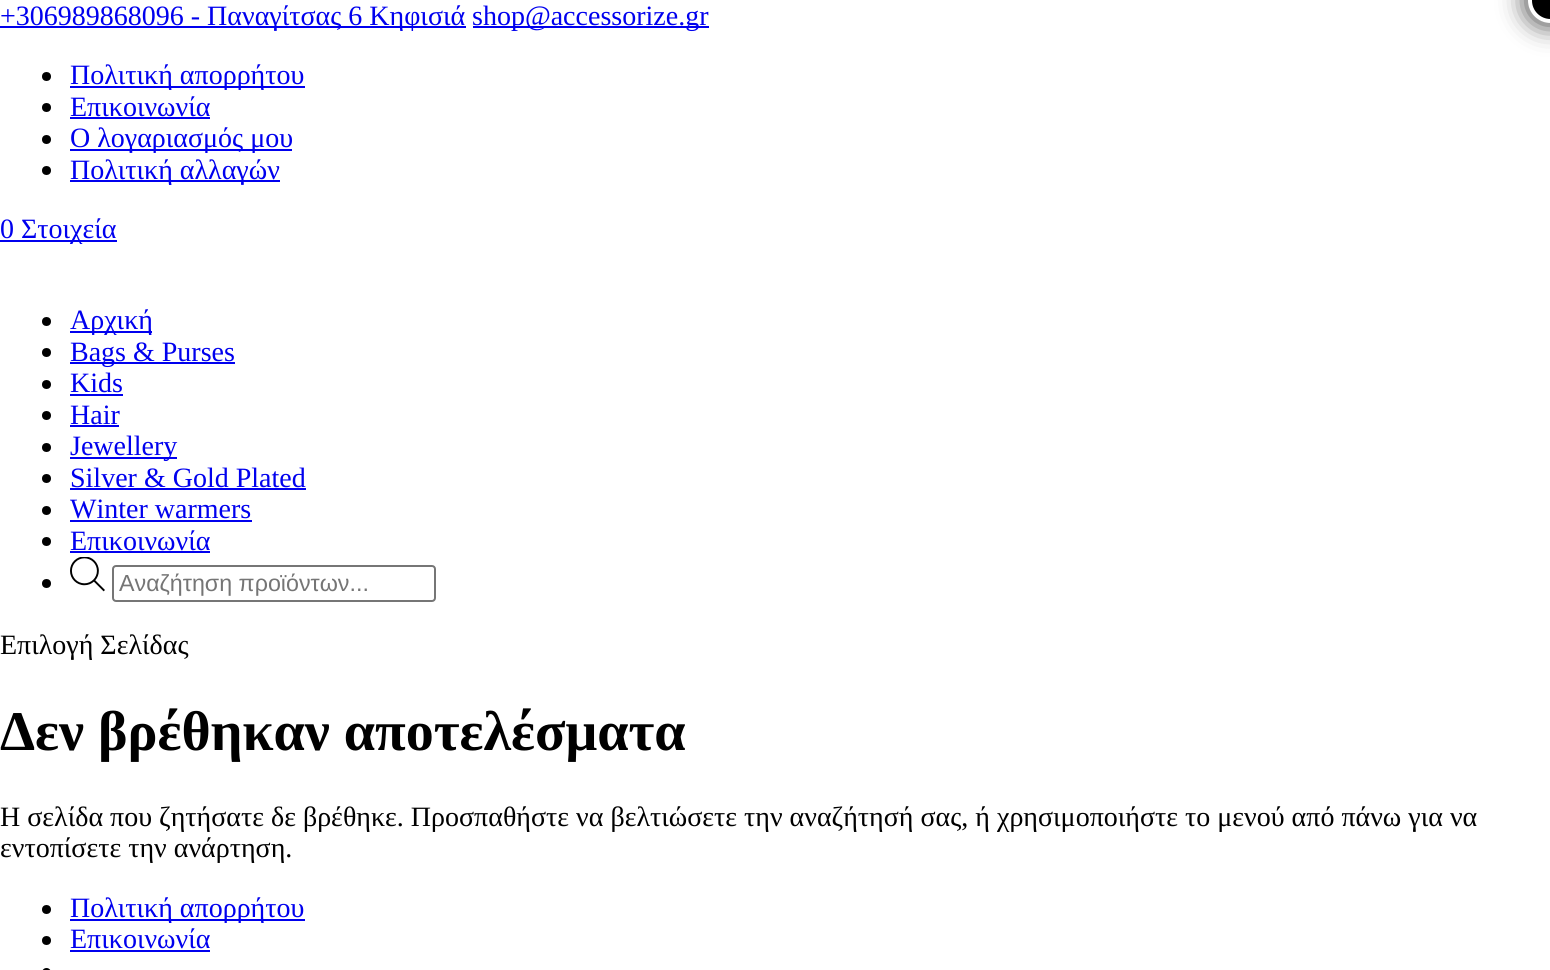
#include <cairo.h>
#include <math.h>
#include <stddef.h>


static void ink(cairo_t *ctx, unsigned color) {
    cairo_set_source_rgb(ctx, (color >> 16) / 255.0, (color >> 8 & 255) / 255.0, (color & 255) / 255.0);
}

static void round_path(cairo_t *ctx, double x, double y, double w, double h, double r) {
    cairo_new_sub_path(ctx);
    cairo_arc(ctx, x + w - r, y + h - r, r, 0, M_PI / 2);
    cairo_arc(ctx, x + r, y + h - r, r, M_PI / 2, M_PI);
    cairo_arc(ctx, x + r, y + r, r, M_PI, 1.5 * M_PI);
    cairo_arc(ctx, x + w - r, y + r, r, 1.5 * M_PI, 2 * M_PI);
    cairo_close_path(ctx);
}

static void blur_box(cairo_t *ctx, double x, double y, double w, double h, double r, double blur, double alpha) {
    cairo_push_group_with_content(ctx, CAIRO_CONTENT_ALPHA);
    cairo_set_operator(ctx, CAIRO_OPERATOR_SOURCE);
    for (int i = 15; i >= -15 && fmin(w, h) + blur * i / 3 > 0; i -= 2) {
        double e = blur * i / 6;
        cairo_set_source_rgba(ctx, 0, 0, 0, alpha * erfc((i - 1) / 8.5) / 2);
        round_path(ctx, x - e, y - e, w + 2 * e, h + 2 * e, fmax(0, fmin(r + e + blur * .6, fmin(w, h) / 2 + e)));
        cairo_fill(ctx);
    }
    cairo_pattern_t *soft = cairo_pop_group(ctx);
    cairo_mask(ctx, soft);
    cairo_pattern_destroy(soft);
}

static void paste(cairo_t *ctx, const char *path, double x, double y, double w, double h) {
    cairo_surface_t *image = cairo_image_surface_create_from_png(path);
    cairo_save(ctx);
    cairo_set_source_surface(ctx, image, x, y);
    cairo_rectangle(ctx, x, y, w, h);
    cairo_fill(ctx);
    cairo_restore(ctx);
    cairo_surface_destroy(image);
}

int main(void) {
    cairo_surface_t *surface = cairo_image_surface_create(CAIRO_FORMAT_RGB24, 1550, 970);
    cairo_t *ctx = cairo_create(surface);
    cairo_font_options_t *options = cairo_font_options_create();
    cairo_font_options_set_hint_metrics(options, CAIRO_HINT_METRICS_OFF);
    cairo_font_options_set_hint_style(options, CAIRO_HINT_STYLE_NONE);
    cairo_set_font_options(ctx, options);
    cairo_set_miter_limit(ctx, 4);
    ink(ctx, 0xFFFFFF);
    cairo_paint(ctx);
    ink(ctx, 0x0000EE);
    cairo_rectangle(ctx, 0, 26, 466, 2);
    cairo_fill(ctx);
    cairo_select_font_face(ctx, "Liberation Serif", CAIRO_FONT_SLANT_NORMAL, CAIRO_FONT_WEIGHT_NORMAL);
    cairo_set_font_size(ctx, 28);
    cairo_move_to(ctx, 0, 25);
    cairo_show_text(ctx, "+306989868096 - Παναγίτσας 6 Κηφισιά");
    cairo_rectangle(ctx, 473, 26, 236, 2);
    cairo_fill(ctx);
    cairo_move_to(ctx, 472, 25);
    cairo_show_text(ctx, "shop@accessorize.gr");
    ink(ctx, 0x000000);
    cairo_new_path(ctx);
    cairo_arc(ctx, 46.5, 76.5, 4.5, 0, 2 * M_PI);
    cairo_fill(ctx);
    ink(ctx, 0x0000EE);
    cairo_rectangle(ctx, 70, 86, 235, 2);
    cairo_fill(ctx);
    cairo_move_to(ctx, 70, 84);
    cairo_show_text(ctx, "Πολιτική απορρήτου");
    ink(ctx, 0x000000);
    cairo_new_path(ctx);
    cairo_arc(ctx, 46.5, 107.5, 4.5, 0, 2 * M_PI);
    cairo_fill(ctx);
    ink(ctx, 0x0000EE);
    cairo_move_to(ctx, 70, 116);
    cairo_show_text(ctx, "Επικοινωνία");
    cairo_rectangle(ctx, 70, 117, 140, 2);
    cairo_fill(ctx);
    ink(ctx, 0x000000);
    cairo_arc(ctx, 46.5, 139.5, 4.5, 0, 2 * M_PI);
    cairo_fill(ctx);
    ink(ctx, 0x0000EE);
    cairo_rectangle(ctx, 70, 149, 222, 2);
    cairo_fill(ctx);
    cairo_move_to(ctx, 70, 147);
    cairo_show_text(ctx, "Ο λογαριασμός μου");
    ink(ctx, 0x000000);
    cairo_new_path(ctx);
    cairo_arc(ctx, 46.5, 170.5, 4.5, 0, 2 * M_PI);
    cairo_fill(ctx);
    ink(ctx, 0x0000EE);
    cairo_rectangle(ctx, 70, 180, 210, 2);
    cairo_fill(ctx);
    cairo_move_to(ctx, 70, 179);
    cairo_show_text(ctx, "Πολιτική αλλαγών");
    cairo_rectangle(ctx, 0, 240, 117, 2);
    cairo_fill(ctx);
    cairo_move_to(ctx, 0, 238);
    cairo_show_text(ctx, "0 Στοιχεία");
    ink(ctx, 0x000000);
    cairo_new_path(ctx);
    cairo_arc(ctx, 46.5, 321.5, 4.5, 0, 2 * M_PI);
    cairo_fill(ctx);
    ink(ctx, 0x0000EE);
    cairo_rectangle(ctx, 70, 331, 82, 2);
    cairo_fill(ctx);
    cairo_move_to(ctx, 70, 329);
    cairo_show_text(ctx, "Αρχική");
    ink(ctx, 0x000000);
    cairo_new_path(ctx);
    cairo_arc(ctx, 46.5, 352.5, 4.5, 0, 2 * M_PI);
    cairo_fill(ctx);
    ink(ctx, 0x0000EE);
    cairo_rectangle(ctx, 70, 362, 165, 2);
    cairo_fill(ctx);
    cairo_move_to(ctx, 70, 361);
    cairo_show_text(ctx, "Bags & Purses");
    ink(ctx, 0x000000);
    cairo_new_path(ctx);
    cairo_arc(ctx, 46.5, 384.5, 4.5, 0, 2 * M_PI);
    cairo_fill(ctx);
    ink(ctx, 0x0000EE);
    cairo_move_to(ctx, 70, 392);
    cairo_show_text(ctx, "Kids");
    cairo_rectangle(ctx, 70, 394, 53, 2);
    cairo_fill(ctx);
    ink(ctx, 0x000000);
    cairo_arc(ctx, 46.5, 415.5, 4.5, 0, 2 * M_PI);
    cairo_fill(ctx);
    ink(ctx, 0x0000EE);
    cairo_move_to(ctx, 70, 424);
    cairo_show_text(ctx, "Hair");
    cairo_rectangle(ctx, 70, 425, 49, 2);
    cairo_fill(ctx);
    ink(ctx, 0x000000);
    cairo_arc(ctx, 46.5, 447.5, 4.5, 0, 2 * M_PI);
    cairo_fill(ctx);
    ink(ctx, 0x0000EE);
    cairo_rectangle(ctx, 70, 457, 107, 2);
    cairo_fill(ctx);
    cairo_move_to(ctx, 70, 455);
    cairo_show_text(ctx, "Jewellery");
    ink(ctx, 0x000000);
    cairo_new_path(ctx);
    cairo_arc(ctx, 46.5, 478.5, 4.5, 0, 2 * M_PI);
    cairo_fill(ctx);
    ink(ctx, 0x0000EE);
    cairo_move_to(ctx, 70, 487);
    cairo_show_text(ctx, "Silver & Gold Plated");
    cairo_rectangle(ctx, 70, 488, 236, 2);
    cairo_fill(ctx);
    ink(ctx, 0x000000);
    cairo_arc(ctx, 46.5, 510.5, 4.5, 0, 2 * M_PI);
    cairo_fill(ctx);
    ink(ctx, 0x0000EE);
    cairo_move_to(ctx, 70, 518);
    cairo_show_text(ctx, "Winter warmers");
    cairo_rectangle(ctx, 70, 520, 182, 2);
    cairo_fill(ctx);
    ink(ctx, 0x000000);
    cairo_arc(ctx, 46.5, 541.5, 4.5, 0, 2 * M_PI);
    cairo_fill(ctx);
    ink(ctx, 0x0000EE);
    cairo_move_to(ctx, 70, 550);
    cairo_show_text(ctx, "Επικοινωνία");
    cairo_rectangle(ctx, 70, 551, 140, 2);
    cairo_fill(ctx);
    ink(ctx, 0x000000);
    cairo_arc(ctx, 46.5, 583.5, 4.5, 0, 2 * M_PI);
    cairo_fill(ctx);
    paste(ctx, "media/1.png", 70, 557, 35, 35);
    round_path(ctx, 113, 566, 322, 35, 3);
    ink(ctx, 0x767676);
    cairo_stroke(ctx);
    cairo_select_font_face(ctx, "Liberation Sans", CAIRO_FONT_SLANT_NORMAL, CAIRO_FONT_WEIGHT_NORMAL);
    cairo_set_font_size(ctx, 23.25);
    ink(ctx, 0x757575);
    cairo_move_to(ctx, 119, 591);
    cairo_show_text(ctx, "Αναζήτηση προϊόντων...");
    cairo_select_font_face(ctx, "Liberation Serif", CAIRO_FONT_SLANT_NORMAL, CAIRO_FONT_WEIGHT_NORMAL);
    cairo_set_font_size(ctx, 28);
    ink(ctx, 0x000000);
    cairo_move_to(ctx, 0, 654);
    cairo_show_text(ctx, "Επιλογή Σελίδας");
    cairo_select_font_face(ctx, "Liberation Serif", CAIRO_FONT_SLANT_NORMAL, CAIRO_FONT_WEIGHT_BOLD);
    cairo_set_font_size(ctx, 56);
    cairo_move_to(ctx, 0, 750);
    cairo_show_text(ctx, "Δεν βρέθηκαν αποτελέσματα");
    cairo_select_font_face(ctx, "Liberation Serif", CAIRO_FONT_SLANT_NORMAL, CAIRO_FONT_WEIGHT_NORMAL);
    cairo_set_font_size(ctx, 28);
    cairo_move_to(ctx, 0, 826);
    cairo_show_text(ctx, "Η σελίδα που ζητήσατε δε βρέθηκε. Προσπαθήστε να βελτιώσετε την αναζήτησή σας, ή χρησιμοποιήστε το μενού από πάνω για να");
    cairo_move_to(ctx, 0, 857);
    cairo_show_text(ctx, "εντοπίσετε την ανάρτηση.");
    cairo_new_path(ctx);
    cairo_arc(ctx, 46.5, 909.5, 4.5, 0, 2 * M_PI);
    cairo_fill(ctx);
    ink(ctx, 0x0000EE);
    cairo_rectangle(ctx, 70, 919, 235, 2);
    cairo_fill(ctx);
    cairo_move_to(ctx, 70, 917);
    cairo_show_text(ctx, "Πολιτική απορρήτου");
    ink(ctx, 0x000000);
    cairo_new_path(ctx);
    cairo_arc(ctx, 46.5, 940.5, 4.5, 0, 2 * M_PI);
    cairo_fill(ctx);
    ink(ctx, 0x0000EE);
    cairo_move_to(ctx, 70, 948);
    cairo_show_text(ctx, "Επικοινωνία");
    cairo_rectangle(ctx, 70, 950, 140, 2);
    cairo_fill(ctx);
    ink(ctx, 0x000000);
    round_path(ctx, 42, 968, 9, 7, 4.5);
    cairo_fill(ctx);
    ink(ctx, 0x020202);
    blur_box(ctx, 1526, -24, 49, 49, 24.5, 13, 0.75);
    ink(ctx, 0x000000);
    round_path(ctx, 1530, -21, 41, 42, 20.5);
    cairo_fill_preserve(ctx);
    ink(ctx, 0xFFFFFF);
    cairo_set_line_width(ctx, 4);
    cairo_stroke(ctx);
    cairo_surface_write_to_png(surface, "image.png");
    cairo_font_options_destroy(options);
    cairo_destroy(ctx);
    cairo_surface_destroy(surface);
    return 0;
}
